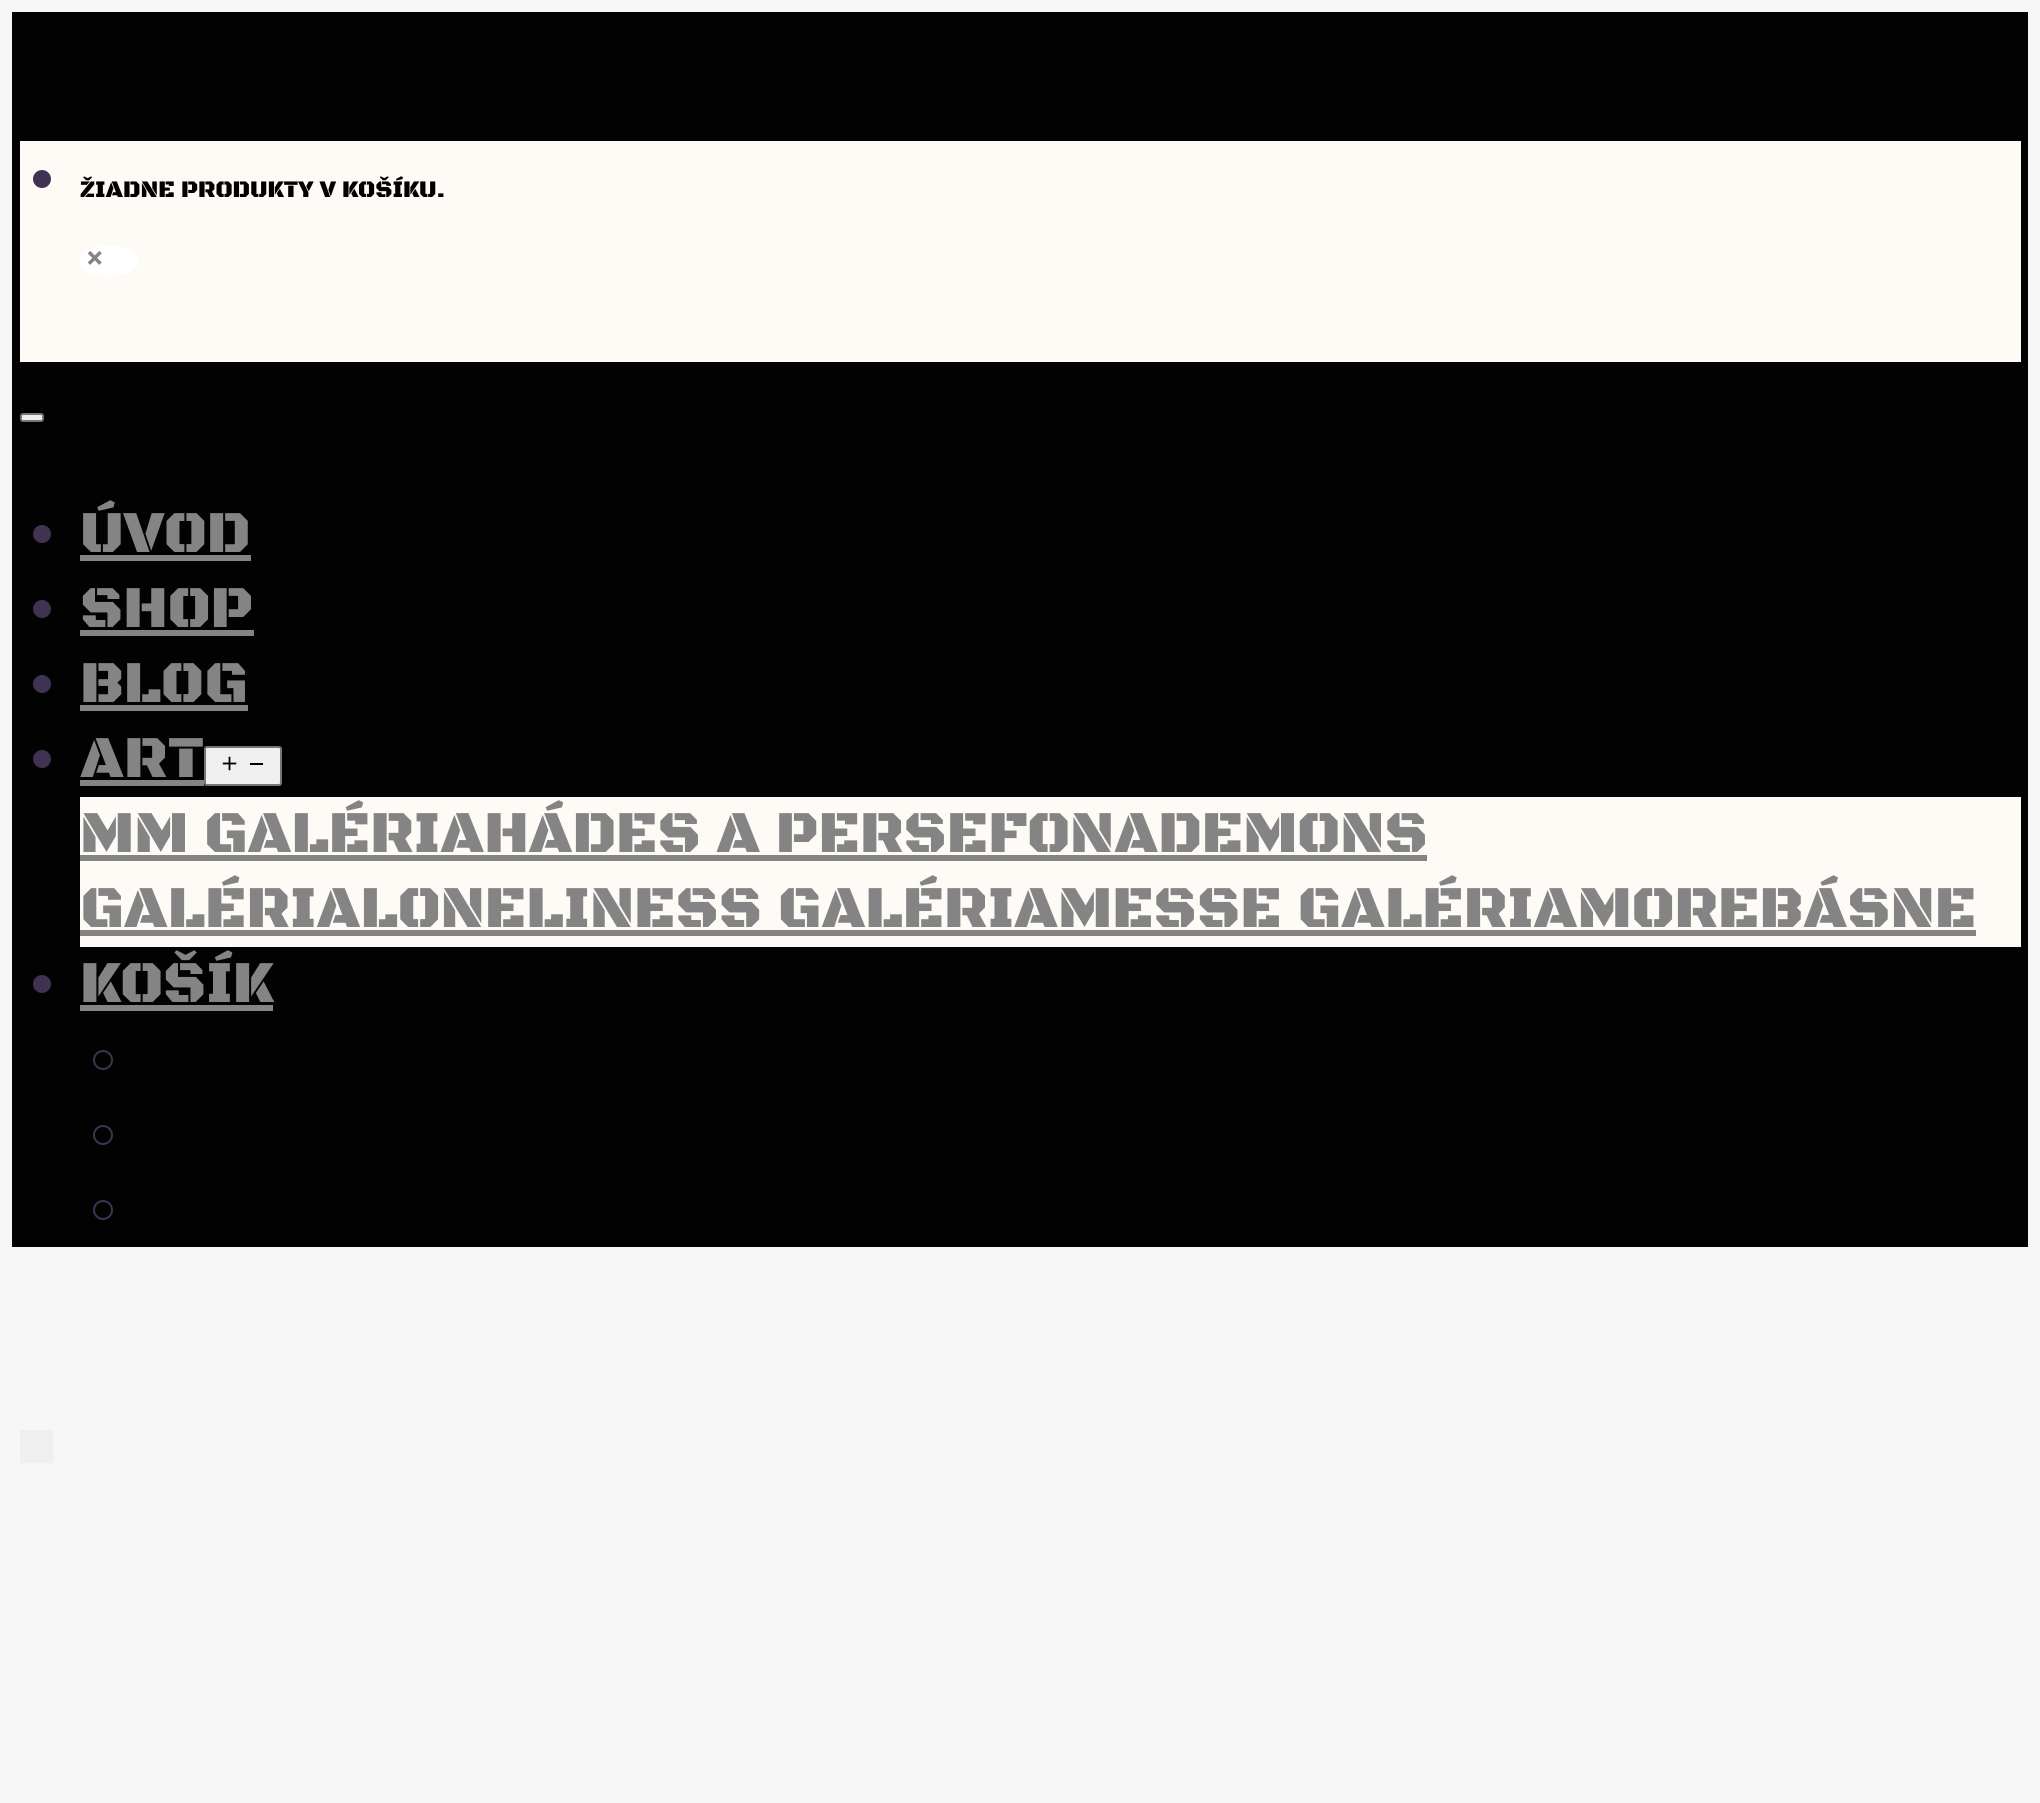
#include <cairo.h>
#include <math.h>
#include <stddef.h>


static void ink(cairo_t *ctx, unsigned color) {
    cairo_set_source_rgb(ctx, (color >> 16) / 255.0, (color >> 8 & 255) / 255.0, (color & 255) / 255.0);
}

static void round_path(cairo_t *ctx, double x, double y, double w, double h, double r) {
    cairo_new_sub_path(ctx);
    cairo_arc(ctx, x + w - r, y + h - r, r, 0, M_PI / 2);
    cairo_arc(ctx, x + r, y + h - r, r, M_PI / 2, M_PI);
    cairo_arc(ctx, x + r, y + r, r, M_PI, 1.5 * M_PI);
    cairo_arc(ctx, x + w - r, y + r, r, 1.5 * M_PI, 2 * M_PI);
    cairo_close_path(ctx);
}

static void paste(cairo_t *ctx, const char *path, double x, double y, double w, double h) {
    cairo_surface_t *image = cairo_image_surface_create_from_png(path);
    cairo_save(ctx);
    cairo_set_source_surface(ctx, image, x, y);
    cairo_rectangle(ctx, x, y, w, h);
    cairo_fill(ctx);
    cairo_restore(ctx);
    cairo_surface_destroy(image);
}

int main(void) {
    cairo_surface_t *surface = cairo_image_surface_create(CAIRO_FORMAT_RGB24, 2040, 1803);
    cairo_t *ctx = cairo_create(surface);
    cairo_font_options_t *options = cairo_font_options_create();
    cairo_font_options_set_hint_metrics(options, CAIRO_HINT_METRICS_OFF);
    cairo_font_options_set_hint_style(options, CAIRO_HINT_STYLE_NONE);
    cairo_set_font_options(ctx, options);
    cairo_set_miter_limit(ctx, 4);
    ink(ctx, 0xF6F6F6);
    cairo_paint(ctx);
    ink(ctx, 0x020202);
    cairo_rectangle(ctx, 12, 12, 2016, 1235);
    cairo_fill(ctx);
    ink(ctx, 0xFEFBF6);
    cairo_rectangle(ctx, 20, 141, 2001, 221);
    cairo_fill(ctx);
    ink(ctx, 0x3F3351);
    cairo_arc(ctx, 42, 179, 9, 0, 2 * M_PI);
    cairo_fill(ctx);
    cairo_select_font_face(ctx, "Black Ops One Black", CAIRO_FONT_SLANT_NORMAL, CAIRO_FONT_WEIGHT_NORMAL);
    cairo_set_font_size(ctx, 24);
    ink(ctx, 0x000000);
    cairo_move_to(ctx, 80, 197);
    cairo_show_text(ctx, "ŽIADNE PRODUKTY V KOŠÍKU.");
    ink(ctx, 0xFFFFFF);
    cairo_new_path(ctx);
    cairo_move_to(ctx, 109.5, 246);
    cairo_curve_to(ctx, 126, 246, 139.5, 252.5, 139.5, 261);
    cairo_curve_to(ctx, 139.5, 269.5, 126, 276, 109.5, 276);
    cairo_curve_to(ctx, 93, 276, 79.5, 269.5, 79.5, 261);
    cairo_curve_to(ctx, 79.5, 252.5, 93, 246, 109.5, 246);
    cairo_close_path(ctx);
    cairo_fill(ctx);
    cairo_set_font_size(ctx, 30);
    ink(ctx, 0x848484);
    cairo_move_to(ctx, 85, 267);
    cairo_show_text(ctx, "×");
    ink(ctx, 0xEFEFEF);
    round_path(ctx, 21, 414, 22, 7, 2);
    cairo_fill_preserve(ctx);
    ink(ctx, 0x767676);
    cairo_stroke(ctx);
    ink(ctx, 0x3F3351);
    cairo_arc(ctx, 42, 534, 9, 0, 2 * M_PI);
    cairo_fill(ctx);
    cairo_set_font_size(ctx, 60);
    ink(ctx, 0x848484);
    cairo_move_to(ctx, 80, 552);
    cairo_show_text(ctx, "ÚVOD");
    cairo_rectangle(ctx, 80, 555, 171, 6);
    cairo_fill(ctx);
    ink(ctx, 0x3F3351);
    cairo_arc(ctx, 42, 609, 9, 0, 2 * M_PI);
    cairo_fill(ctx);
    ink(ctx, 0x848484);
    cairo_move_to(ctx, 80, 627);
    cairo_show_text(ctx, "SHOP");
    cairo_rectangle(ctx, 80, 630, 174, 6);
    cairo_fill(ctx);
    ink(ctx, 0x3F3351);
    cairo_arc(ctx, 42, 684, 9, 0, 2 * M_PI);
    cairo_fill(ctx);
    ink(ctx, 0x848484);
    cairo_move_to(ctx, 80, 702);
    cairo_show_text(ctx, "BLOG");
    cairo_rectangle(ctx, 80, 705, 168, 6);
    cairo_fill(ctx);
    ink(ctx, 0x3F3351);
    cairo_arc(ctx, 42, 759, 9, 0, 2 * M_PI);
    cairo_fill(ctx);
    ink(ctx, 0x848484);
    cairo_move_to(ctx, 80, 777);
    cairo_show_text(ctx, "ART");
    cairo_rectangle(ctx, 80, 780, 124, 6);
    cairo_fill(ctx);
    ink(ctx, 0xEFEFEF);
    round_path(ctx, 205, 747, 76, 38, 2);
    cairo_fill_preserve(ctx);
    ink(ctx, 0x767676);
    cairo_stroke(ctx);
    paste(ctx, "media/1.png", 222, 756, 15, 15);
    ink(ctx, 0x000000);
    cairo_rectangle(ctx, 250, 763, 13, 2);
    cairo_fill(ctx);
    ink(ctx, 0xFEFBF6);
    cairo_rectangle(ctx, 80, 797, 1941, 150);
    cairo_fill(ctx);
    ink(ctx, 0x848484);
    cairo_move_to(ctx, 80, 852);
    cairo_show_text(ctx, "MM GALÉRIAHÁDES A PERSEFONADEMONS");
    cairo_rectangle(ctx, 80, 855, 1347, 6);
    cairo_fill(ctx);
    cairo_move_to(ctx, 80, 927);
    cairo_show_text(ctx, "GALÉRIALONELINESS GALÉRIAMESSE GALÉRIAMOREBÁSNE");
    cairo_rectangle(ctx, 80, 930, 1896, 6);
    cairo_fill(ctx);
    ink(ctx, 0x3F3351);
    cairo_arc(ctx, 42, 984, 9, 0, 2 * M_PI);
    cairo_fill(ctx);
    ink(ctx, 0x848484);
    cairo_move_to(ctx, 80, 1002);
    cairo_show_text(ctx, "KOŠÍK");
    cairo_rectangle(ctx, 80, 1005, 193, 6);
    cairo_fill(ctx);
    cairo_arc(ctx, 103, 1060, 9, 0, 2 * M_PI);
    ink(ctx, 0x3F3351);
    cairo_stroke(ctx);
    cairo_arc(ctx, 103, 1135, 9, 0, 2 * M_PI);
    cairo_stroke(ctx);
    cairo_arc(ctx, 103, 1210, 9, 0, 2 * M_PI);
    cairo_stroke(ctx);
    ink(ctx, 0xEFEFEF);
    cairo_rectangle(ctx, 20, 1430, 33, 33);
    cairo_fill(ctx);
    cairo_surface_write_to_png(surface, "image.png");
    cairo_font_options_destroy(options);
    cairo_destroy(ctx);
    cairo_surface_destroy(surface);
    return 0;
}
